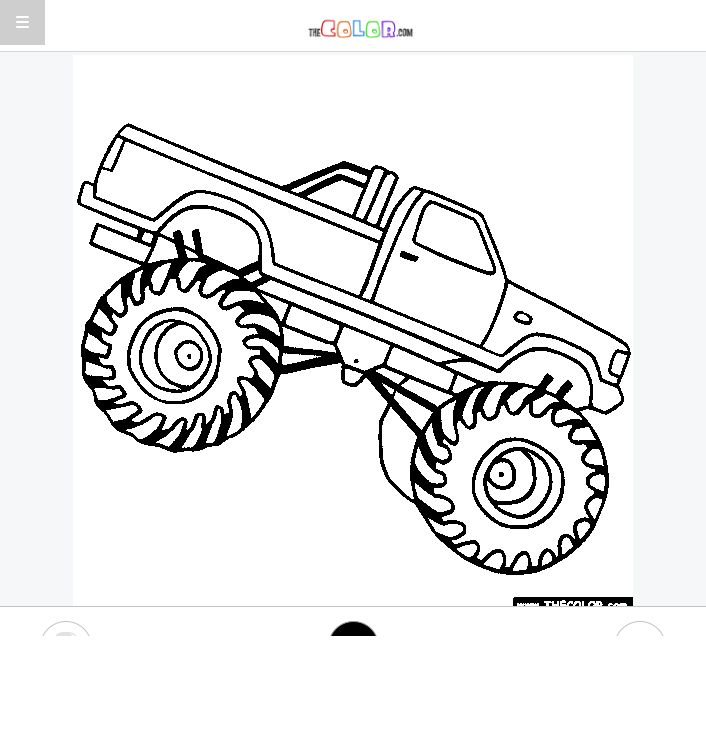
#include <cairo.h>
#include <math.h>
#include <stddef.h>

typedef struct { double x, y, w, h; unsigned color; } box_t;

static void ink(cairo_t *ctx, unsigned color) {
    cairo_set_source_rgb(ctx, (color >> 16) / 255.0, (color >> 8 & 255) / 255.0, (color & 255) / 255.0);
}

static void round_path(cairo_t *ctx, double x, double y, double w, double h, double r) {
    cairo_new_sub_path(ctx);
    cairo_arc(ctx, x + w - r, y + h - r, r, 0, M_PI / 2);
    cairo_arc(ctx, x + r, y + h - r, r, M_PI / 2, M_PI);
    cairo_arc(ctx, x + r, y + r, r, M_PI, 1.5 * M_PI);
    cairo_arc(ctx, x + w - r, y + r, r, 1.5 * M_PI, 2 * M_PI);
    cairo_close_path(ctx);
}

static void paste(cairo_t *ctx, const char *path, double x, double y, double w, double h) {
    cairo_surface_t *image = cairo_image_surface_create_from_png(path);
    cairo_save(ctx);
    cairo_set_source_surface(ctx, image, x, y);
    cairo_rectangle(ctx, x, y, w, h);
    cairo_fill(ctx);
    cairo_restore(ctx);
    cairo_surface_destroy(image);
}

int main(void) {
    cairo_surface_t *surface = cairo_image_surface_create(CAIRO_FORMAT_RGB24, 706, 736);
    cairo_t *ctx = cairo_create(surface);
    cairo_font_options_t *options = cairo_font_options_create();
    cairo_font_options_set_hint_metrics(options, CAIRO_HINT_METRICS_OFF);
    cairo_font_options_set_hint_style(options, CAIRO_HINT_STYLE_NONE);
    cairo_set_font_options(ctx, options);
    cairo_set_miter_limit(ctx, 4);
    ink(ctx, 0xF6F7F9);
    cairo_paint(ctx);
    {
        static const box_t items[] = {
            {0, 0, 706, 51, 0xFFFFFF},
            {0, 51, 706, 1, 0xD7D7D7},
            {0, 0, 45, 45, 0xCECECE},
        };
        for (size_t i = 0; i < sizeof items / sizeof *items; i++) {
            ink(ctx, items[i].color);
            cairo_rectangle(ctx, items[i].x, items[i].y, items[i].w, items[i].h);
            cairo_fill(ctx);
        }
    }
    ink(ctx, 0xFFFFFF);
    round_path(ctx, 16, 16, 13, 2, 1);
    cairo_fill(ctx);
    round_path(ctx, 16, 21, 13, 2, 1);
    cairo_fill(ctx);
    round_path(ctx, 16, 26, 13, 2, 1);
    cairo_fill(ctx);
    paste(ctx, "media/1.png", 308, 19, 106, 20);
    paste(ctx, "media/2.png", 73, 55, 560, 551);
    cairo_rectangle(ctx, 0, 607, 706, 29);
    cairo_fill(ctx);
    cairo_rectangle(ctx, -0.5, 606.5, 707, 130);
    ink(ctx, 0xC3C3C3);
    cairo_set_line_width(ctx, 1);
    cairo_stroke(ctx);
    cairo_arc(ctx, 66, 647, 25.5, 0, 2 * M_PI);
    cairo_stroke(ctx);
    paste(ctx, "media/3.png", 55, 632, 22, 4);
    ink(ctx, 0x000000);
    cairo_arc(ctx, 353.5, 646.5, 25, 0, 2 * M_PI);
    cairo_fill_preserve(ctx);
    ink(ctx, 0x999999);
    cairo_stroke(ctx);
    cairo_arc(ctx, 640, 647, 25.5, 0, 2 * M_PI);
    ink(ctx, 0xC3C3C3);
    cairo_stroke(ctx);
    ink(ctx, 0xFFFFFF);
    cairo_rectangle(ctx, 0, 636, 706, 100);
    cairo_fill(ctx);
    cairo_surface_write_to_png(surface, "image.png");
    cairo_font_options_destroy(options);
    cairo_destroy(ctx);
    cairo_surface_destroy(surface);
    return 0;
}
